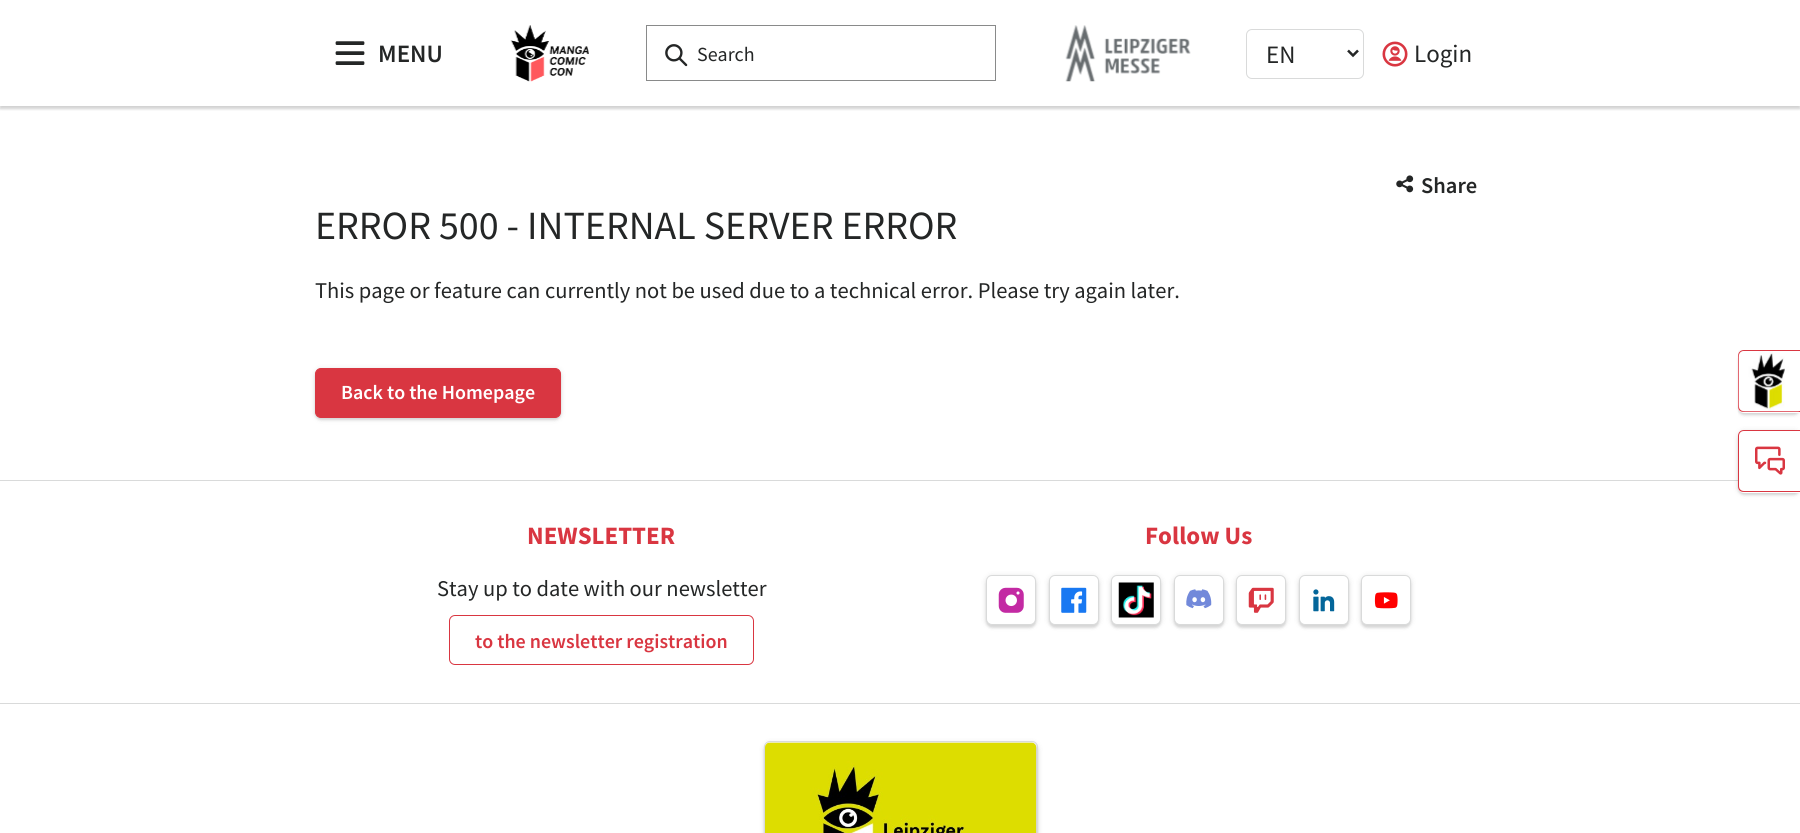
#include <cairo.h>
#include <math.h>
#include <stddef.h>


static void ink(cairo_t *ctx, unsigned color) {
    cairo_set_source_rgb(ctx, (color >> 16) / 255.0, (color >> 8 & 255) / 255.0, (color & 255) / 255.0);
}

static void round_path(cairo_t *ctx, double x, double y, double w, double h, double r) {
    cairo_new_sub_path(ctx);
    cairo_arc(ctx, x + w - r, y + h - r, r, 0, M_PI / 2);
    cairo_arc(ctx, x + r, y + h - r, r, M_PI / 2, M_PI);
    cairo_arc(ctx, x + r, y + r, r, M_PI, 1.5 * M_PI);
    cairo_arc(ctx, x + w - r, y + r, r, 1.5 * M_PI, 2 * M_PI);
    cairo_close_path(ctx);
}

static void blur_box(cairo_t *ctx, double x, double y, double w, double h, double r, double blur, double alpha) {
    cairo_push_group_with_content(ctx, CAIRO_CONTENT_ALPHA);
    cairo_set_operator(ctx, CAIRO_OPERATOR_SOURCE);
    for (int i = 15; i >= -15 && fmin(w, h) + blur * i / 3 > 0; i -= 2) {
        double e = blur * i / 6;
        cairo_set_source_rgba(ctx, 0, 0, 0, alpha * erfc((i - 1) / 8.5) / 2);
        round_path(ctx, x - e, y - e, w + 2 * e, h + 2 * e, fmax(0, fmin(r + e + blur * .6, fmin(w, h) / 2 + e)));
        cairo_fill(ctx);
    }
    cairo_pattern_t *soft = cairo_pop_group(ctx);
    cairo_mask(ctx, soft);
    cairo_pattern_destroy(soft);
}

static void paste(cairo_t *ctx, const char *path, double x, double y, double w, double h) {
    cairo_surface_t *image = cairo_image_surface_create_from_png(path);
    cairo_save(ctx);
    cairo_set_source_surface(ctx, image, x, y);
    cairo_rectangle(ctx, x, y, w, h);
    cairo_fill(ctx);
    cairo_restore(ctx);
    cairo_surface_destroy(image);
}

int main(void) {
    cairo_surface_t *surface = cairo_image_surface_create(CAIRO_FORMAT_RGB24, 1800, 833);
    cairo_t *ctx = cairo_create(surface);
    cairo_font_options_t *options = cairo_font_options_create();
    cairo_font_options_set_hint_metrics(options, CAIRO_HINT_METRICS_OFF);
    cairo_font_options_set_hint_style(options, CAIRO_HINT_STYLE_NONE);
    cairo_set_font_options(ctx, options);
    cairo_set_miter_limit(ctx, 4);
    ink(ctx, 0xFFFFFF);
    cairo_paint(ctx);
    cairo_save(ctx);
    cairo_rectangle(ctx, 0, 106, 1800, 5);
    cairo_clip(ctx);
    ink(ctx, 0x000000);
    blur_box(ctx, 0, 1, 1800, 107, 0, 3, 0.12);
    cairo_restore(ctx);
    cairo_save(ctx);
    cairo_rectangle(ctx, 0, 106, 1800, 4);
    cairo_clip(ctx);
    ink(ctx, 0x000000);
    blur_box(ctx, 0, 3, 1800, 106, 0, 1, 0.1);
    cairo_restore(ctx);
    paste(ctx, "media/1.png", 335, 41, 30, 24);
    cairo_select_font_face(ctx, "Source Sans Pro SemiBold", CAIRO_FONT_SLANT_NORMAL, CAIRO_FONT_WEIGHT_NORMAL);
    cairo_set_font_size(ctx, 25);
    ink(ctx, 0x242626);
    cairo_move_to(ctx, 378, 62);
    cairo_show_text(ctx, "MENU");
    paste(ctx, "media/2.png", 510, 25, 79, 57);
    cairo_rectangle(ctx, 646.5, 25.5, 349, 55);
    ink(ctx, 0x898A8A);
    cairo_set_line_width(ctx, 1);
    cairo_stroke(ctx);
    paste(ctx, "media/3.png", 665, 44, 23, 23);
    cairo_select_font_face(ctx, "Source Sans Pro", CAIRO_FONT_SLANT_NORMAL, CAIRO_FONT_WEIGHT_NORMAL);
    cairo_set_font_size(ctx, 20);
    ink(ctx, 0x242626);
    cairo_move_to(ctx, 697, 61);
    cairo_show_text(ctx, "Search");
    paste(ctx, "media/4.png", 1065, 25, 126, 57);
    round_path(ctx, 1246.5, 29.5, 117, 49, 5.5);
    ink(ctx, 0xD9DADA);
    cairo_stroke(ctx);
    cairo_new_path(ctx);
    cairo_move_to(ctx, 1348, 50.5);
    cairo_line_to(ctx, 1353, 55.5);
    cairo_line_to(ctx, 1358, 50.5);
    ink(ctx, 0x242626);
    cairo_set_line_width(ctx, 2.5);
    cairo_stroke(ctx);
    cairo_set_font_size(ctx, 25);
    cairo_move_to(ctx, 1266, 63);
    cairo_show_text(ctx, "EN");
    paste(ctx, "media/5.png", 1382, 41, 26, 26);
    cairo_move_to(ctx, 1414, 62);
    cairo_show_text(ctx, "Login");
    paste(ctx, "media/6.png", 1396, 175, 18, 18);
    cairo_select_font_face(ctx, "Source Sans Pro SemiBold", CAIRO_FONT_SLANT_NORMAL, CAIRO_FONT_WEIGHT_NORMAL);
    cairo_set_font_size(ctx, 22.5);
    cairo_move_to(ctx, 1421, 193);
    cairo_show_text(ctx, "Share");
    cairo_select_font_face(ctx, "Source Sans Pro", CAIRO_FONT_SLANT_NORMAL, CAIRO_FONT_WEIGHT_NORMAL);
    cairo_set_font_size(ctx, 40);
    cairo_move_to(ctx, 315, 239);
    cairo_show_text(ctx, "ERROR 500 - INTERNAL SERVER ERROR");
    cairo_set_font_size(ctx, 22.5);
    cairo_move_to(ctx, 315, 298);
    cairo_show_text(ctx, "This page or feature can currently not be used due to a technical error. Please try again later.");
    ink(ctx, 0x000000);
    blur_box(ctx, 315, 369, 246, 50, 6, 3, 0.12);
    blur_box(ctx, 315, 370, 246, 50, 6, 1, 0.1);
    ink(ctx, 0xD93641);
    round_path(ctx, 315.5, 368.5, 245, 49, 5.5);
    cairo_fill_preserve(ctx);
    cairo_set_line_width(ctx, 1);
    cairo_stroke(ctx);
    cairo_select_font_face(ctx, "Source Sans Pro SemiBold", CAIRO_FONT_SLANT_NORMAL, CAIRO_FONT_WEIGHT_NORMAL);
    cairo_set_font_size(ctx, 20);
    ink(ctx, 0xFFFFFF);
    cairo_move_to(ctx, 341, 399);
    cairo_show_text(ctx, "Back to the Homepage");
    cairo_save(ctx);
    cairo_rectangle(ctx, 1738, 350, 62, 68);
    cairo_clip(ctx);
    ink(ctx, 0x000000);
    blur_box(ctx, 1738, 351, 62, 63, 6, 3, 0.12);
    cairo_restore(ctx);
    ink(ctx, 0x000000);
    blur_box(ctx, 1738, 353, 62, 62, 6, 1, 0.1);
    ink(ctx, 0xFFFFFF);
    cairo_new_path(ctx);
    cairo_move_to(ctx, 1744, 350);
    cairo_line_to(ctx, 1800, 350);
    cairo_line_to(ctx, 1800, 413);
    cairo_line_to(ctx, 1744, 413);
    cairo_curve_to(ctx, 1740.5, 413, 1738, 410.5, 1738, 407);
    cairo_line_to(ctx, 1738, 356);
    cairo_curve_to(ctx, 1738, 352.5, 1740.5, 350, 1744, 350);
    cairo_close_path(ctx);
    cairo_fill(ctx);
    ink(ctx, 0xD93641);
    cairo_set_fill_rule(ctx, CAIRO_FILL_RULE_EVEN_ODD);
    cairo_new_path(ctx);
    cairo_move_to(ctx, 1744, 350);
    cairo_line_to(ctx, 1800, 350);
    cairo_line_to(ctx, 1800, 412);
    cairo_line_to(ctx, 1744, 412);
    cairo_curve_to(ctx, 1740, 412, 1738, 410, 1738, 406);
    cairo_line_to(ctx, 1738, 356);
    cairo_curve_to(ctx, 1738, 353, 1740, 350, 1744, 350);
    cairo_close_path(ctx);
    cairo_move_to(ctx, 1744, 351);
    cairo_line_to(ctx, 1800, 351);
    cairo_line_to(ctx, 1800, 411);
    cairo_line_to(ctx, 1744, 411);
    cairo_curve_to(ctx, 1741, 411, 1739, 409, 1739, 406);
    cairo_line_to(ctx, 1739, 356);
    cairo_curve_to(ctx, 1739, 353, 1741, 351, 1744, 351);
    cairo_close_path(ctx);
    cairo_fill(ctx);
    paste(ctx, "media/7.png", 1738, 351, 61, 61);
    ink(ctx, 0xD9DADA);
    cairo_rectangle(ctx, 0, 480, 1738, 1);
    cairo_fill(ctx);
    ink(ctx, 0x000000);
    blur_box(ctx, 1738, 431, 62, 63, 6, 3, 0.12);
    blur_box(ctx, 1738, 433, 62, 62, 6, 1, 0.1);
    ink(ctx, 0xFFFFFF);
    cairo_new_path(ctx);
    cairo_move_to(ctx, 1744, 430);
    cairo_line_to(ctx, 1800, 430);
    cairo_line_to(ctx, 1800, 493);
    cairo_line_to(ctx, 1744, 493);
    cairo_curve_to(ctx, 1740.5, 493, 1738, 490.5, 1738, 487);
    cairo_line_to(ctx, 1738, 436);
    cairo_curve_to(ctx, 1738, 432.5, 1740.5, 430, 1744, 430);
    cairo_close_path(ctx);
    cairo_fill(ctx);
    ink(ctx, 0xD93641);
    cairo_new_path(ctx);
    cairo_move_to(ctx, 1744, 430);
    cairo_line_to(ctx, 1800, 430);
    cairo_line_to(ctx, 1800, 492);
    cairo_line_to(ctx, 1744, 492);
    cairo_curve_to(ctx, 1740, 492, 1738, 490, 1738, 486);
    cairo_line_to(ctx, 1738, 436);
    cairo_curve_to(ctx, 1738, 433, 1740, 430, 1744, 430);
    cairo_close_path(ctx);
    cairo_move_to(ctx, 1744, 431);
    cairo_line_to(ctx, 1800, 431);
    cairo_line_to(ctx, 1800, 491);
    cairo_line_to(ctx, 1744, 491);
    cairo_curve_to(ctx, 1741, 491, 1739, 489, 1739, 486);
    cairo_line_to(ctx, 1739, 436);
    cairo_curve_to(ctx, 1739, 433, 1741, 431, 1744, 431);
    cairo_close_path(ctx);
    cairo_fill(ctx);
    paste(ctx, "media/8.png", 1755, 446, 30, 29);
    cairo_select_font_face(ctx, "Source Sans Pro", CAIRO_FONT_SLANT_NORMAL, CAIRO_FONT_WEIGHT_BOLD);
    cairo_set_font_size(ctx, 25);
    cairo_move_to(ctx, 527, 544);
    cairo_show_text(ctx, "NEWSLETTER");
    cairo_select_font_face(ctx, "Source Sans Pro", CAIRO_FONT_SLANT_NORMAL, CAIRO_FONT_WEIGHT_NORMAL);
    cairo_set_font_size(ctx, 22.5);
    ink(ctx, 0x242626);
    cairo_move_to(ctx, 437, 596);
    cairo_show_text(ctx, "Stay up to date with our newsletter");
    round_path(ctx, 449.5, 615.5, 304, 49, 5.5);
    ink(ctx, 0xD93641);
    cairo_stroke(ctx);
    cairo_select_font_face(ctx, "Source Sans Pro SemiBold", CAIRO_FONT_SLANT_NORMAL, CAIRO_FONT_WEIGHT_NORMAL);
    cairo_set_font_size(ctx, 20);
    cairo_move_to(ctx, 475, 648);
    cairo_show_text(ctx, "to the newsletter registration");
    cairo_select_font_face(ctx, "Source Sans Pro", CAIRO_FONT_SLANT_NORMAL, CAIRO_FONT_WEIGHT_BOLD);
    cairo_set_font_size(ctx, 25);
    cairo_move_to(ctx, 1145, 544);
    cairo_show_text(ctx, "Follow Us");
    ink(ctx, 0x000000);
    blur_box(ctx, 986, 576, 50, 50, 6, 3, 0.12);
    blur_box(ctx, 986, 578, 50, 50, 6, 1, 0.1);
    ink(ctx, 0xFFFFFF);
    round_path(ctx, 986.5, 575.5, 49, 49, 5.5);
    cairo_fill_preserve(ctx);
    ink(ctx, 0xD9DADA);
    cairo_stroke(ctx);
    paste(ctx, "media/9.png", 998, 587, 26, 26);
    ink(ctx, 0x000000);
    blur_box(ctx, 1049, 576, 50, 50, 6, 3, 0.12);
    blur_box(ctx, 1049, 578, 50, 50, 6, 1, 0.1);
    ink(ctx, 0xFFFFFF);
    round_path(ctx, 1049.5, 575.5, 49, 49, 5.5);
    cairo_fill_preserve(ctx);
    ink(ctx, 0xD9DADA);
    cairo_stroke(ctx);
    paste(ctx, "media/10.png", 1061, 587, 26, 26);
    ink(ctx, 0x000000);
    blur_box(ctx, 1111, 576, 50, 50, 6, 3, 0.12);
    blur_box(ctx, 1111, 578, 50, 50, 6, 1, 0.1);
    ink(ctx, 0xFFFFFF);
    round_path(ctx, 1111.5, 575.5, 49, 49, 5.5);
    cairo_fill_preserve(ctx);
    ink(ctx, 0xD9DADA);
    cairo_stroke(ctx);
    paste(ctx, "media/11.png", 1118, 582, 36, 36);
    ink(ctx, 0x000000);
    blur_box(ctx, 1174, 576, 50, 50, 6, 3, 0.12);
    blur_box(ctx, 1174, 578, 50, 50, 6, 1, 0.1);
    ink(ctx, 0xFFFFFF);
    round_path(ctx, 1174.5, 575.5, 49, 49, 5.5);
    cairo_fill_preserve(ctx);
    ink(ctx, 0xD9DADA);
    cairo_stroke(ctx);
    paste(ctx, "media/12.png", 1186, 589, 26, 20);
    ink(ctx, 0x000000);
    blur_box(ctx, 1236, 576, 50, 50, 6, 3, 0.12);
    blur_box(ctx, 1236, 578, 50, 50, 6, 1, 0.1);
    ink(ctx, 0xFFFFFF);
    round_path(ctx, 1236.5, 575.5, 49, 49, 5.5);
    cairo_fill_preserve(ctx);
    ink(ctx, 0xD9DADA);
    cairo_stroke(ctx);
    paste(ctx, "media/13.png", 1248, 587, 26, 26);
    ink(ctx, 0x000000);
    blur_box(ctx, 1299, 576, 50, 50, 6, 3, 0.12);
    blur_box(ctx, 1299, 578, 50, 50, 6, 1, 0.1);
    ink(ctx, 0xFFFFFF);
    round_path(ctx, 1299.5, 575.5, 49, 49, 5.5);
    cairo_fill_preserve(ctx);
    ink(ctx, 0xD9DADA);
    cairo_stroke(ctx);
    paste(ctx, "media/14.png", 1313, 589, 22, 23);
    ink(ctx, 0x000000);
    blur_box(ctx, 1361, 576, 50, 50, 6, 3, 0.12);
    blur_box(ctx, 1361, 578, 50, 50, 6, 1, 0.1);
    ink(ctx, 0xFFFFFF);
    round_path(ctx, 1361.5, 575.5, 49, 49, 5.5);
    cairo_fill_preserve(ctx);
    ink(ctx, 0xD9DADA);
    cairo_stroke(ctx);
    paste(ctx, "media/15.png", 1374, 592, 24, 17);
    cairo_rectangle(ctx, 0, 703, 1800, 1);
    cairo_fill(ctx);
    ink(ctx, 0x000000);
    blur_box(ctx, 764, 743, 274, 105, 6, 3, 0.12);
    blur_box(ctx, 764, 744, 274, 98, 6, 1, 0.1);
    round_path(ctx, 764.5, 741.5, 273, 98, 5.5);
    ink(ctx, 0xD9DADA);
    cairo_stroke(ctx);
    paste(ctx, "media/16.png", 765, 742, 272, 91);
    cairo_surface_write_to_png(surface, "image.png");
    cairo_font_options_destroy(options);
    cairo_destroy(ctx);
    cairo_surface_destroy(surface);
    return 0;
}
